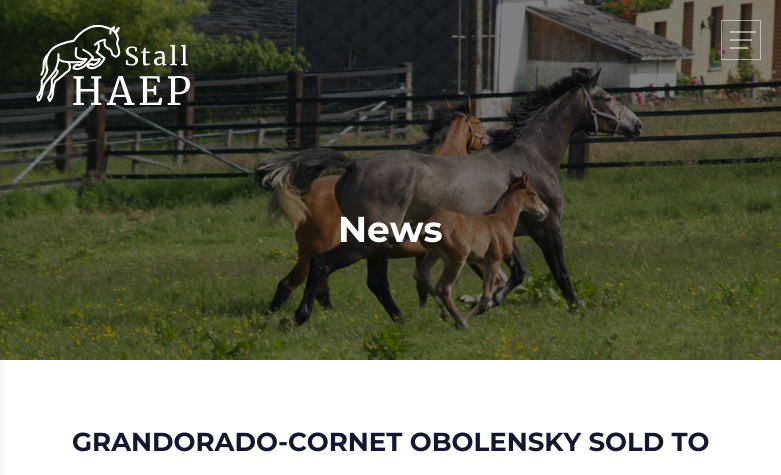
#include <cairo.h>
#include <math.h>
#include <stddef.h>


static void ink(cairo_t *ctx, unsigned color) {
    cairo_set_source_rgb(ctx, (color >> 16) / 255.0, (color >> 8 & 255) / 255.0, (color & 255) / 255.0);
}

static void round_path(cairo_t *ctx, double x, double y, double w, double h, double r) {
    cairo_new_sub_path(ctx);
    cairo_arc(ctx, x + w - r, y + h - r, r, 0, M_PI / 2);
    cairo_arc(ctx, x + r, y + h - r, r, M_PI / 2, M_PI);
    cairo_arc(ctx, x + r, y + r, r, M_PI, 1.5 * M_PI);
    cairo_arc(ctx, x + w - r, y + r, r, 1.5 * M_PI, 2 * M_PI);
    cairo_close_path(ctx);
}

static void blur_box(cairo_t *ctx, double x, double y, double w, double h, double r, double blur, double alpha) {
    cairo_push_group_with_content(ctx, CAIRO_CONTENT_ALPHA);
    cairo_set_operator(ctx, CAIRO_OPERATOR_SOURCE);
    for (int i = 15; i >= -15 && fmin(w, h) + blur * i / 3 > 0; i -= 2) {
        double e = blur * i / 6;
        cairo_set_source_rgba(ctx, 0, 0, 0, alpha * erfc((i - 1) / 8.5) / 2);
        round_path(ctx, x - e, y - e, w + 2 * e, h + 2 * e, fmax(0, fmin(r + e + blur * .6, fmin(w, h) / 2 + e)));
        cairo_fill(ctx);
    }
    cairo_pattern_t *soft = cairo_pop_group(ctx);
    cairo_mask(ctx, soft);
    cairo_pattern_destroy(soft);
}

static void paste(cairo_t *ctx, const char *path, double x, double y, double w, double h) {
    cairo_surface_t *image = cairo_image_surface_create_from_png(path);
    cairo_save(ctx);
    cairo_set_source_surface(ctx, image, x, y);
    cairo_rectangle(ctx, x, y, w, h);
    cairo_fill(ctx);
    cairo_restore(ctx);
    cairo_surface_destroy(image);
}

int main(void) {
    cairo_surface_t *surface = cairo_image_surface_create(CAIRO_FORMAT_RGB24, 781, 475);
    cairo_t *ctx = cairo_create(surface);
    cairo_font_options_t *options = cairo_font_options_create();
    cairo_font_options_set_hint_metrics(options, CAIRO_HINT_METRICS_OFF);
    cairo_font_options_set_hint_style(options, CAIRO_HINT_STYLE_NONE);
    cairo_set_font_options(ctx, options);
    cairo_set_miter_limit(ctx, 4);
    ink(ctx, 0xFFFFFF);
    cairo_paint(ctx);
    paste(ctx, "media/2.png", 0, 0, 781, 360);
    ink(ctx, 0x000000);
    blur_box(ctx, -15, 0, 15, 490, 0, 5, 0.1);
    paste(ctx, "media/1.png", 36, 25, 154, 80);
    cairo_rectangle(ctx, 721.5, 20.5, 39, 39);
    cairo_set_source_rgba(ctx, 1, 1, 1, 0.5);
    cairo_set_line_width(ctx, 1);
    cairo_stroke(ctx);
    cairo_rectangle(ctx, 730, 39, 22, 2);
    cairo_fill(ctx);
    cairo_rectangle(ctx, 730, 31, 26, 2);
    cairo_fill(ctx);
    cairo_rectangle(ctx, 730, 47, 18, 2);
    cairo_fill(ctx);
    cairo_select_font_face(ctx, "Montserrat Thin", CAIRO_FONT_SLANT_NORMAL, CAIRO_FONT_WEIGHT_NORMAL);
    cairo_set_font_size(ctx, 36);
    ink(ctx, 0xFFFFFF);
    cairo_move_to(ctx, 338, 242);
    cairo_show_text(ctx, "News");
    cairo_set_font_size(ctx, 26);
    ink(ctx, 0x13182E);
    cairo_move_to(ctx, 72, 451);
    cairo_show_text(ctx, "GRANDORADO-CORNET OBOLENSKY SOLD TO");
    cairo_surface_write_to_png(surface, "image.png");
    cairo_font_options_destroy(options);
    cairo_destroy(ctx);
    cairo_surface_destroy(surface);
    return 0;
}
